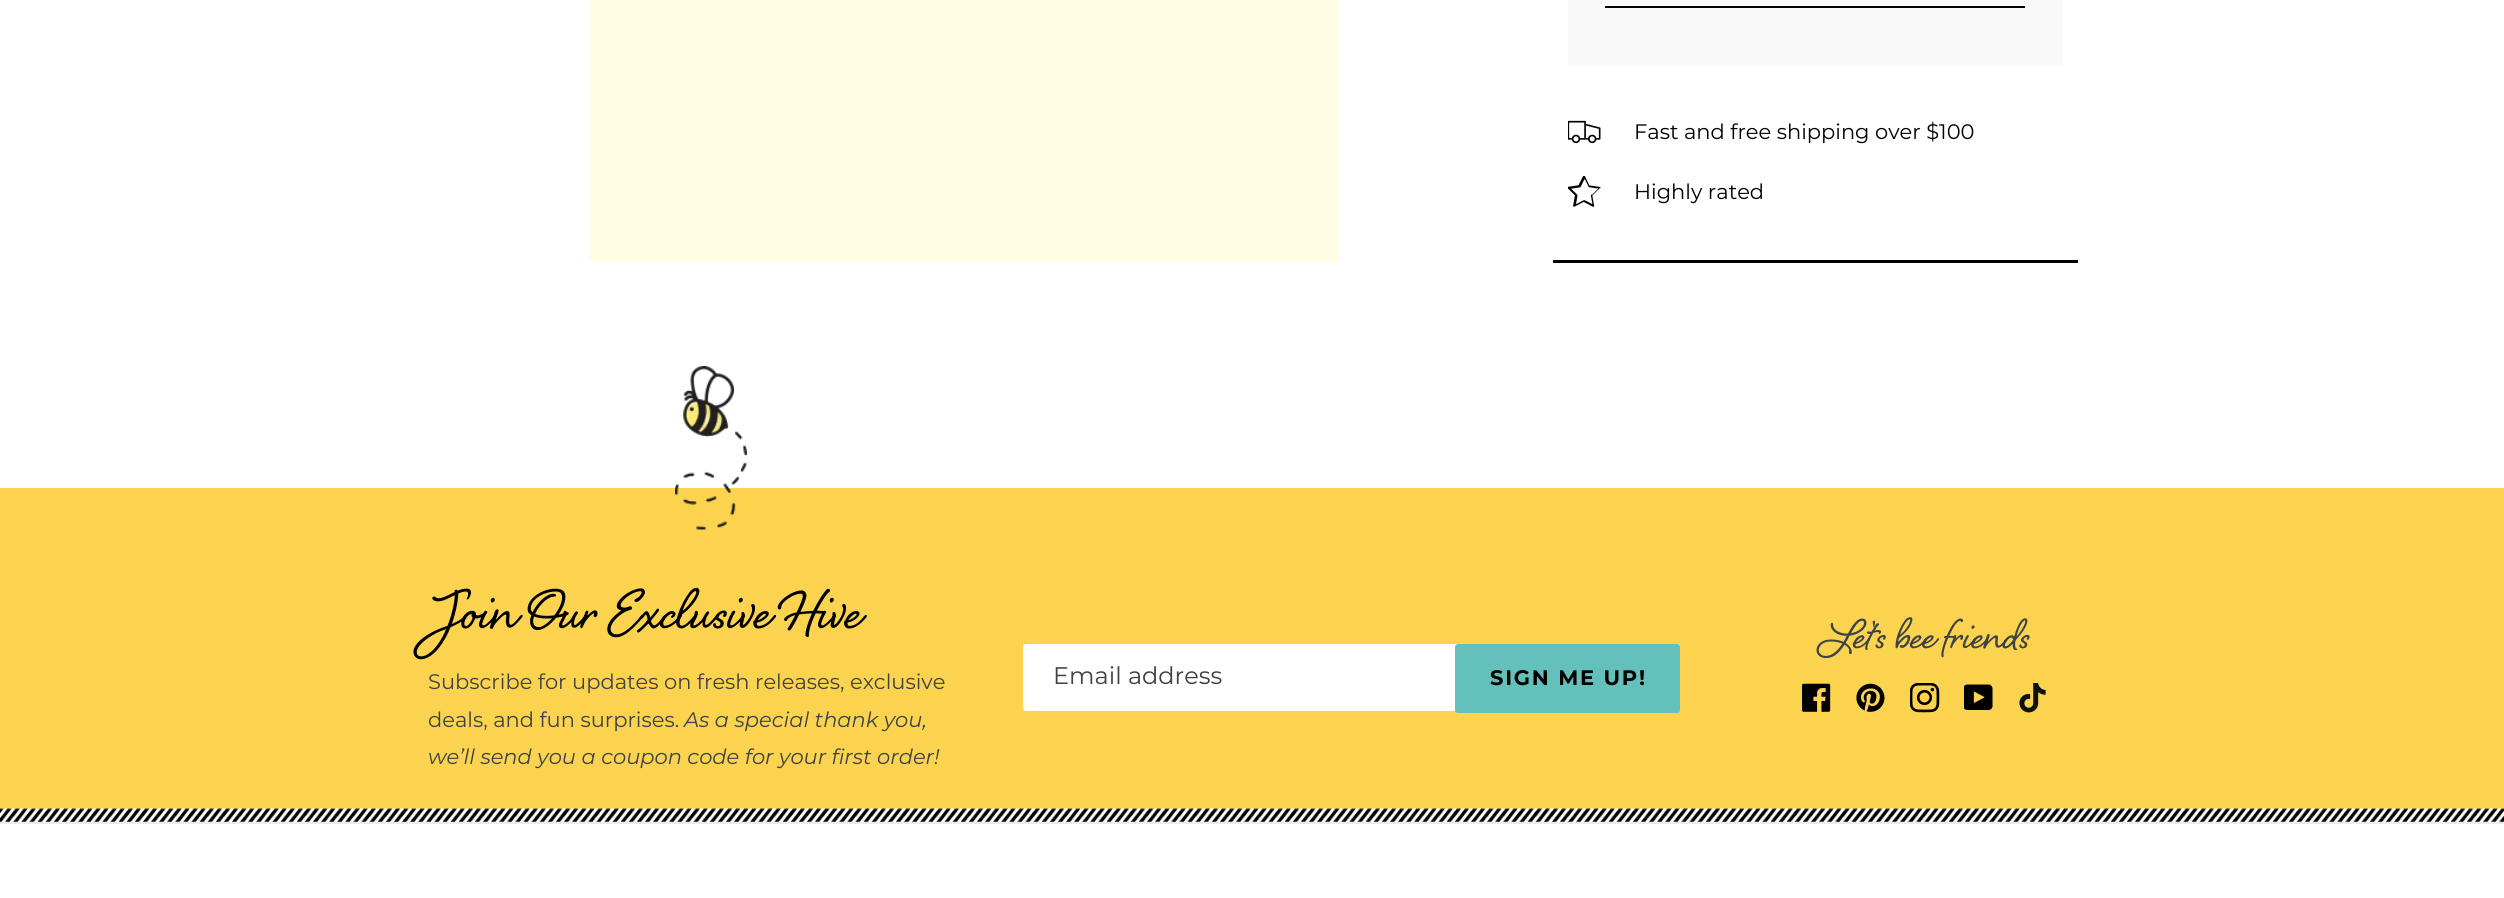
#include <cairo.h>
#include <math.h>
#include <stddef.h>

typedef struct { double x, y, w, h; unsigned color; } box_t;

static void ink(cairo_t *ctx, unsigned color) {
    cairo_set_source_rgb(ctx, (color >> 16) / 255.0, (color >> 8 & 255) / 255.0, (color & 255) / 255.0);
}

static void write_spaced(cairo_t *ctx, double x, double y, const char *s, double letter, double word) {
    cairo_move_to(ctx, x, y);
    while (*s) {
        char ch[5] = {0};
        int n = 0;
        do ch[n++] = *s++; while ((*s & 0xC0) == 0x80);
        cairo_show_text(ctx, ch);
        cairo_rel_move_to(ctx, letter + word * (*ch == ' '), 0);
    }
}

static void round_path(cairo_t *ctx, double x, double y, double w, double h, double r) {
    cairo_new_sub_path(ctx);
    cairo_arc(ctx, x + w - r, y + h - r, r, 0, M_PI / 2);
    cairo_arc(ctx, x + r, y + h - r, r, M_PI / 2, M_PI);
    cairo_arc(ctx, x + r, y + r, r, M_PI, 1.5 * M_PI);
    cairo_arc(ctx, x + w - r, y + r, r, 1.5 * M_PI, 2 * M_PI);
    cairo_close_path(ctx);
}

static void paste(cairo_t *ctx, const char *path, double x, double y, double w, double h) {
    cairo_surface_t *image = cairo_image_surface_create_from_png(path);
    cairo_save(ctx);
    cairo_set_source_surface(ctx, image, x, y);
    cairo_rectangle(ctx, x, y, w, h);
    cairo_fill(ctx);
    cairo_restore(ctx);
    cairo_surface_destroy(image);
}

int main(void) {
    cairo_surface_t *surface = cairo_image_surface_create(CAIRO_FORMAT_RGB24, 2504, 898);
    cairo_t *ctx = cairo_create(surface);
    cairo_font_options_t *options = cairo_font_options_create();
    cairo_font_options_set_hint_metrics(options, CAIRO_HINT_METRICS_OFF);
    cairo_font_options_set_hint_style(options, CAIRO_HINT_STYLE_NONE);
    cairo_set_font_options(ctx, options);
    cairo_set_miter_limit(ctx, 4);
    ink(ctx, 0xFFFFFF);
    cairo_paint(ctx);
    {
        static const box_t items[] = {
            {589, 0, 750, 262, 0xFFFDE4},
            {1568, 0, 495, 65, 0xF9F9F9},
            {1605, 6, 420, 2, 0x000000},
            {1553, 260, 525, 3, 0x000000},
        };
        for (size_t i = 0; i < sizeof items / sizeof *items; i++) {
            ink(ctx, items[i].color);
            cairo_rectangle(ctx, items[i].x, items[i].y, items[i].w, items[i].h);
            cairo_fill(ctx);
        }
    }
    paste(ctx, "media/1.png", 1568, 120, 33, 24);
    cairo_select_font_face(ctx, "Montserrat", CAIRO_FONT_SLANT_NORMAL, CAIRO_FONT_WEIGHT_NORMAL);
    cairo_set_font_size(ctx, 21);
    cairo_move_to(ctx, 1634, 139);
    cairo_show_text(ctx, "Fast and free shipping over $100");
    paste(ctx, "media/2.png", 1568, 176, 33, 31);
    cairo_move_to(ctx, 1634, 199);
    cairo_show_text(ctx, "Highly rated");
    ink(ctx, 0xFBD34F);
    cairo_rectangle(ctx, 0, 488, 2504, 321);
    cairo_fill(ctx);
    paste(ctx, "media/3.png", 0, 808, 2504, 14);
    paste(ctx, "media/4.png", 675, 366, 72, 164);
    cairo_select_font_face(ctx, "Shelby", CAIRO_FONT_SLANT_NORMAL, CAIRO_FONT_WEIGHT_NORMAL);
    cairo_set_font_size(ctx, 72);
    ink(ctx, 0x000000);
    cairo_move_to(ctx, 428, 628);
    cairo_show_text(ctx, "Join Our Exclusive Hive");
    cairo_select_font_face(ctx, "Montserrat", CAIRO_FONT_SLANT_NORMAL, CAIRO_FONT_WEIGHT_NORMAL);
    cairo_set_font_size(ctx, 21);
    ink(ctx, 0x3D4246);
    cairo_move_to(ctx, 428, 689);
    cairo_show_text(ctx, "Subscribe for updates on fresh releases, exclusive");
    cairo_move_to(ctx, 428, 727);
    cairo_show_text(ctx, "deals, and fun surprises.");
    cairo_select_font_face(ctx, "Montserrat", CAIRO_FONT_SLANT_ITALIC, CAIRO_FONT_WEIGHT_NORMAL);
    cairo_move_to(ctx, 684, 727);
    cairo_show_text(ctx, "As a special thank you,");
    cairo_move_to(ctx, 428, 764);
    cairo_show_text(ctx, "we’ll send you a coupon code for your first order!");
    cairo_select_font_face(ctx, "Shelby", CAIRO_FONT_SLANT_NORMAL, CAIRO_FONT_WEIGHT_NORMAL);
    cairo_set_font_size(ctx, 54);
    cairo_move_to(ctx, 1820, 648);
    cairo_show_text(ctx, "Let's bee friends");
    paste(ctx, "media/5.png", 1802, 683, 29, 29);
    paste(ctx, "media/6.png", 1856, 683, 29, 29);
    paste(ctx, "media/7.png", 1910, 683, 30, 30);
    paste(ctx, "media/8.png", 1964, 684, 29, 26);
    paste(ctx, "media/9.png", 2019, 683, 27, 30);
    ink(ctx, 0xFFFFFF);
    round_path(ctx, 1023, 644, 657, 67, 3);
    cairo_fill(ctx);
    cairo_select_font_face(ctx, "Montserrat", CAIRO_FONT_SLANT_NORMAL, CAIRO_FONT_WEIGHT_NORMAL);
    cairo_set_font_size(ctx, 24);
    ink(ctx, 0x404040);
    cairo_move_to(ctx, 1053, 684);
    cairo_show_text(ctx, "Email address");
    ink(ctx, 0x63C0BB);
    round_path(ctx, 1455, 644, 225, 69, 3);
    cairo_fill(ctx);
    cairo_select_font_face(ctx, "Montserrat", CAIRO_FONT_SLANT_NORMAL, CAIRO_FONT_WEIGHT_BOLD);
    cairo_set_font_size(ctx, 21);
    ink(ctx, 0x000000);
    write_spaced(ctx, 1490, 685, "SIGN ME UP!", 1.75, 0);
    ink(ctx, 0xEBEBEB);
    cairo_rectangle(ctx, 0, 822, 2504, 2);
    cairo_fill(ctx);
    cairo_surface_write_to_png(surface, "image.png");
    cairo_font_options_destroy(options);
    cairo_destroy(ctx);
    cairo_surface_destroy(surface);
    return 0;
}
